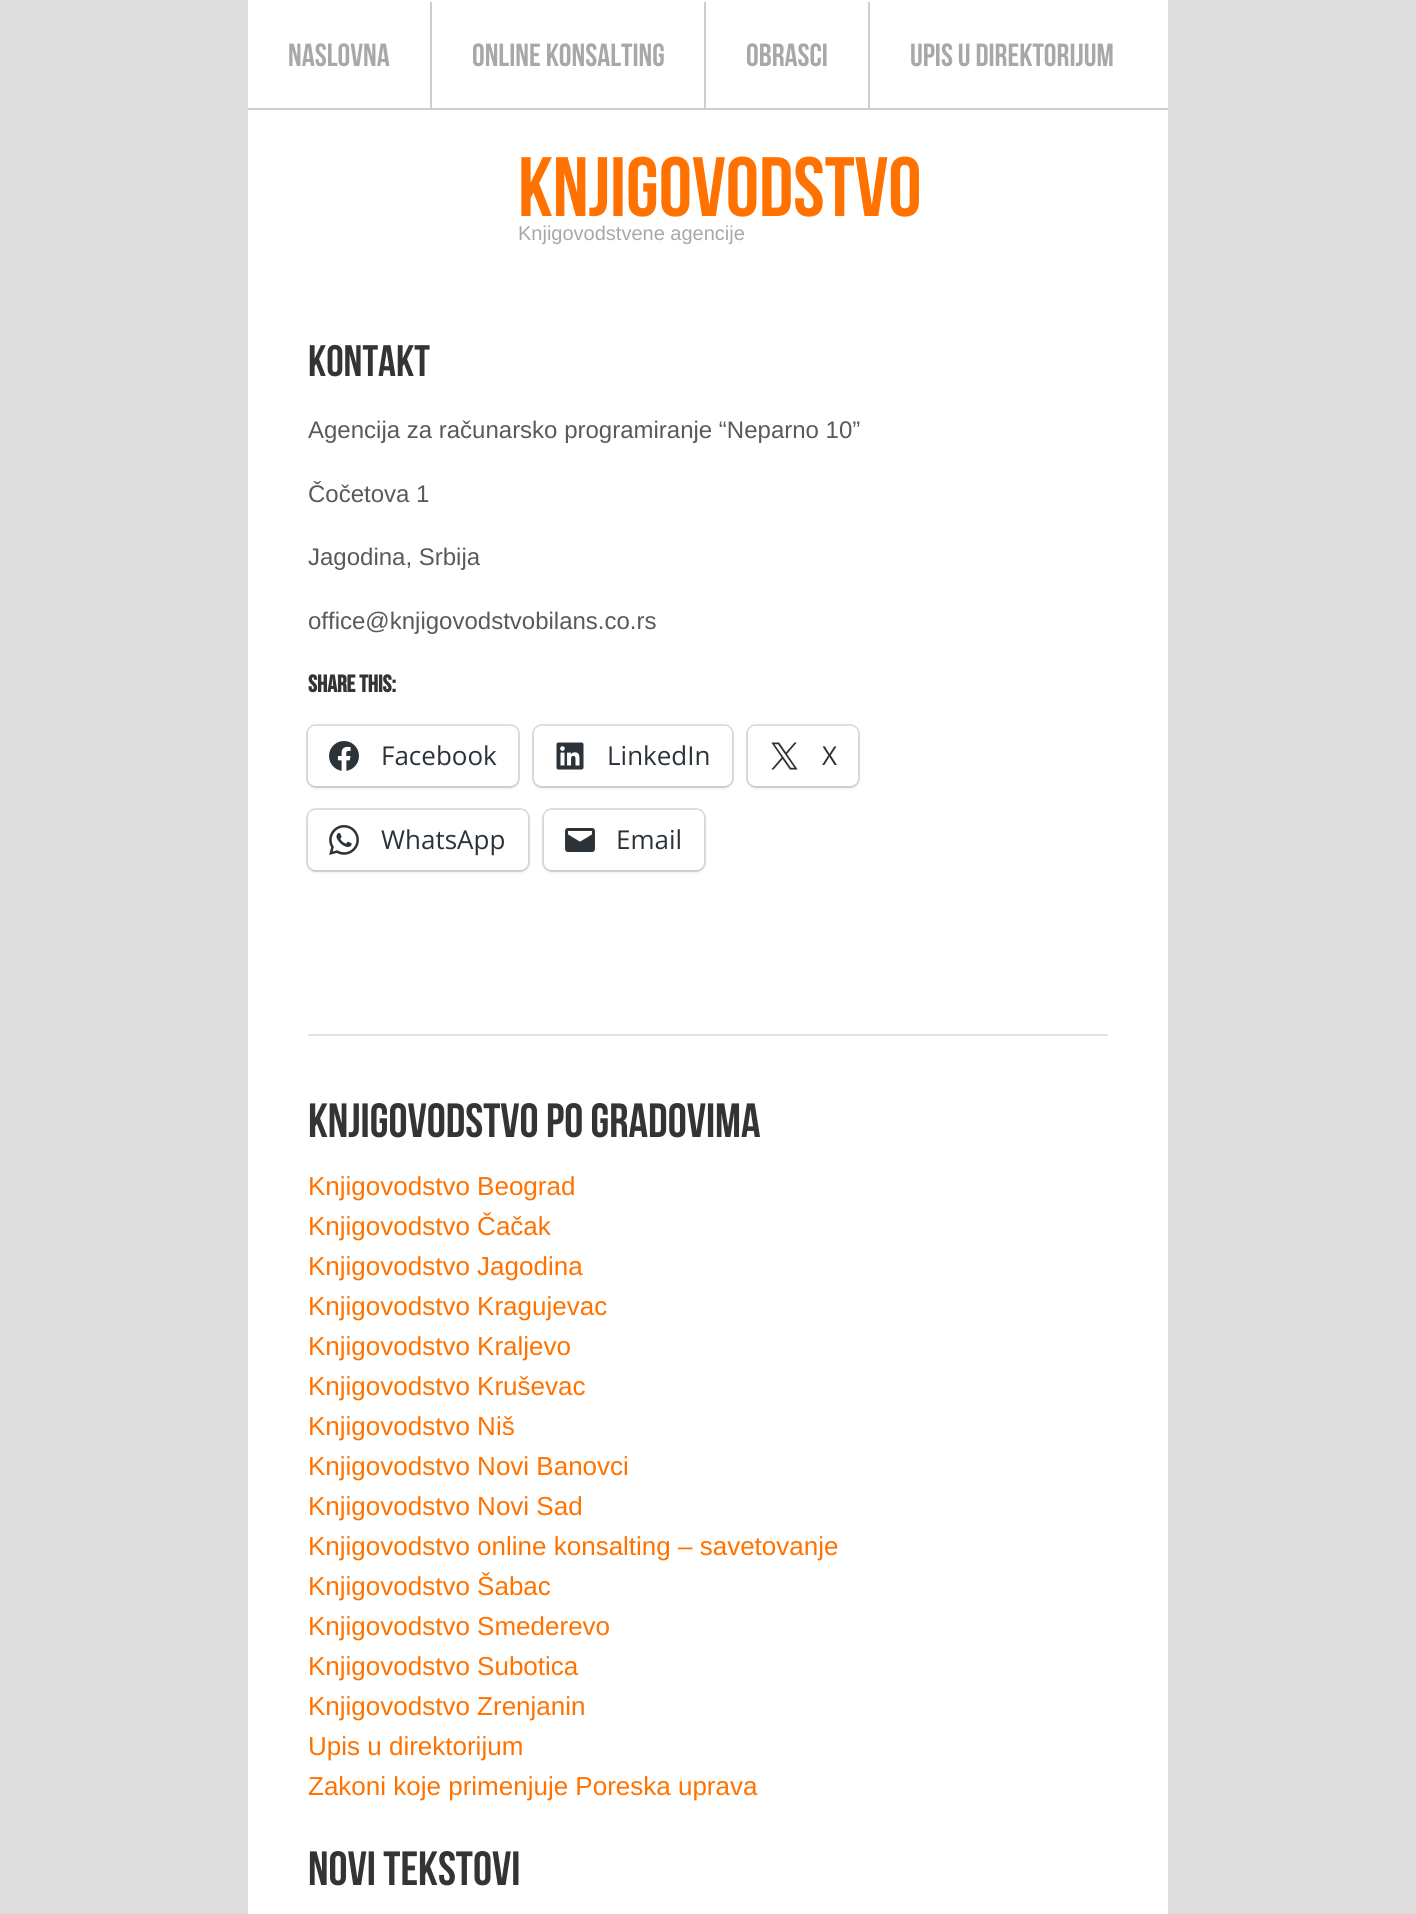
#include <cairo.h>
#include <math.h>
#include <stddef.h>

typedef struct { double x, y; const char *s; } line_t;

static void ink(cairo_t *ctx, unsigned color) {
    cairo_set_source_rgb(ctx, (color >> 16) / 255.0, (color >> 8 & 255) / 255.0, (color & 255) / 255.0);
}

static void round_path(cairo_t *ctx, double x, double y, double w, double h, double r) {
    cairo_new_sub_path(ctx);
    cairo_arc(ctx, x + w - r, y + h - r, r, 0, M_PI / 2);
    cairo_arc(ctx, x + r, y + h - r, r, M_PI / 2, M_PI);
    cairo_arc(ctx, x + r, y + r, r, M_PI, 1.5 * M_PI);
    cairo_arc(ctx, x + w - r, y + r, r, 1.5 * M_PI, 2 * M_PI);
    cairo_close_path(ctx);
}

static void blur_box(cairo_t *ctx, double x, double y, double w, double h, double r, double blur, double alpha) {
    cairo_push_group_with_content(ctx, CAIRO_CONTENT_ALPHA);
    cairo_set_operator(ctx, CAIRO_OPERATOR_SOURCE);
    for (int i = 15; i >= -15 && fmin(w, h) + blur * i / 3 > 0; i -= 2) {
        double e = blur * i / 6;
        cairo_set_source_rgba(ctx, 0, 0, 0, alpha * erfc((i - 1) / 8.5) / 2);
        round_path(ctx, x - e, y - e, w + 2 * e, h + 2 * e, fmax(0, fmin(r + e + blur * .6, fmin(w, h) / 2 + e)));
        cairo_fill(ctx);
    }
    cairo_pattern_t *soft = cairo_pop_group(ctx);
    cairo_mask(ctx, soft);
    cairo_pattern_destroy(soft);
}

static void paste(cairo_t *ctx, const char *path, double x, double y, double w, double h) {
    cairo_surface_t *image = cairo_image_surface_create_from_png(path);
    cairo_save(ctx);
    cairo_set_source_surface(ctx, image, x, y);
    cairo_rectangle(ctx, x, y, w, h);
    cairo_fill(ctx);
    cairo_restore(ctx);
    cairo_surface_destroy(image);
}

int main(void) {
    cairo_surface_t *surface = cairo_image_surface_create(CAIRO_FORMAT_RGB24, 1416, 1914);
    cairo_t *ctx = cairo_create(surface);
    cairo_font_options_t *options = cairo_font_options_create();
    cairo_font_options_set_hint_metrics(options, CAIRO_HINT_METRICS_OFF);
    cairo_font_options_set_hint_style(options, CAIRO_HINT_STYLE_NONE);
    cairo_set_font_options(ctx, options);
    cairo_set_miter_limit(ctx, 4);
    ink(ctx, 0xDDDDDD);
    cairo_paint(ctx);
    ink(ctx, 0xFFFFFF);
    cairo_rectangle(ctx, 248, 0, 920, 1914);
    cairo_fill(ctx);
    ink(ctx, 0xCDCDCD);
    cairo_rectangle(ctx, 248, 108, 920, 2);
    cairo_fill(ctx);
    cairo_select_font_face(ctx, "Bebas Neue", CAIRO_FONT_SLANT_NORMAL, CAIRO_FONT_WEIGHT_NORMAL);
    cairo_set_font_size(ctx, 32);
    ink(ctx, 0xA8A8A8);
    cairo_move_to(ctx, 288, 66);
    cairo_show_text(ctx, "NASLOVNA");
    ink(ctx, 0xCDCDCD);
    cairo_rectangle(ctx, 430, 2, 2, 106);
    cairo_fill(ctx);
    ink(ctx, 0xA8A8A8);
    cairo_move_to(ctx, 472, 66);
    cairo_show_text(ctx, "ONLINE KONSALTING");
    ink(ctx, 0xCDCDCD);
    cairo_rectangle(ctx, 704, 2, 2, 106);
    cairo_fill(ctx);
    ink(ctx, 0xA8A8A8);
    cairo_move_to(ctx, 746, 66);
    cairo_show_text(ctx, "OBRASCI");
    ink(ctx, 0xCDCDCD);
    cairo_rectangle(ctx, 868, 2, 2, 106);
    cairo_fill(ctx);
    ink(ctx, 0xA8A8A8);
    cairo_move_to(ctx, 910, 66);
    cairo_show_text(ctx, "UPIS U DIREKTORIJUM");
    cairo_set_font_size(ctx, 84);
    ink(ctx, 0xFF7200);
    cairo_move_to(ctx, 518, 216);
    cairo_show_text(ctx, "Knjigovodstvo");
    cairo_select_font_face(ctx, "Liberation Sans", CAIRO_FONT_SLANT_NORMAL, CAIRO_FONT_WEIGHT_NORMAL);
    cairo_set_font_size(ctx, 20);
    ink(ctx, 0xA8A8A8);
    cairo_move_to(ctx, 518, 240);
    cairo_show_text(ctx, "Knjigovodstvene agencije");
    ink(ctx, 0xE2E2E2);
    cairo_rectangle(ctx, 308, 1034, 800, 2);
    cairo_fill(ctx);
    cairo_select_font_face(ctx, "Bebas Neue", CAIRO_FONT_SLANT_NORMAL, CAIRO_FONT_WEIGHT_NORMAL);
    cairo_set_font_size(ctx, 44);
    ink(ctx, 0x343434);
    cairo_move_to(ctx, 308, 376);
    cairo_show_text(ctx, "Kontakt");
    cairo_select_font_face(ctx, "Liberation Sans", CAIRO_FONT_SLANT_NORMAL, CAIRO_FONT_WEIGHT_NORMAL);
    cairo_set_font_size(ctx, 24);
    ink(ctx, 0x5A5A5A);
    {
        static const line_t items[] = {
            {308, 438, "Agencija za računarsko programiranje “Neparno 10”"},
            {308, 502, "Čočetova 1"},
            {308, 565, "Jagodina, Srbija"},
            {308, 629, "office@knjigovodstvobilans.co.rs"},
        };
        for (size_t i = 0; i < sizeof items / sizeof *items; i++) {
            cairo_move_to(ctx, items[i].x, items[i].y);
            cairo_show_text(ctx, items[i].s);
        }
    }
    cairo_select_font_face(ctx, "Bebas Neue", CAIRO_FONT_SLANT_NORMAL, CAIRO_FONT_WEIGHT_BOLD);
    ink(ctx, 0x343434);
    cairo_move_to(ctx, 308, 692);
    cairo_show_text(ctx, "Share this:");
    round_path(ctx, 307, 725, 212, 62, 9);
    ink(ctx, 0xE0E0E0);
    cairo_stroke(ctx);
    ink(ctx, 0x000000);
    blur_box(ctx, 308, 728, 210, 60, 8, 2, 0.12);
    ink(ctx, 0xFFFFFF);
    round_path(ctx, 308, 726, 210, 60, 8);
    cairo_fill(ctx);
    paste(ctx, "media/1.png", 329, 741, 30, 30);
    cairo_select_font_face(ctx, "Open Sans", CAIRO_FONT_SLANT_NORMAL, CAIRO_FONT_WEIGHT_NORMAL);
    cairo_set_font_size(ctx, 26);
    ink(ctx, 0x2C3338);
    cairo_move_to(ctx, 381, 765);
    cairo_show_text(ctx, "Facebook");
    round_path(ctx, 533, 725, 200, 62, 9);
    ink(ctx, 0xE0E0E0);
    cairo_stroke(ctx);
    ink(ctx, 0x000000);
    blur_box(ctx, 534, 728, 198, 60, 8, 2, 0.12);
    ink(ctx, 0xFFFFFF);
    round_path(ctx, 534, 726, 198, 60, 8);
    cairo_fill(ctx);
    paste(ctx, "media/2.png", 556, 742, 28, 28);
    ink(ctx, 0x2C3338);
    cairo_move_to(ctx, 607, 765);
    cairo_show_text(ctx, "LinkedIn");
    round_path(ctx, 747, 725, 112, 62, 9);
    ink(ctx, 0xE0E0E0);
    cairo_stroke(ctx);
    ink(ctx, 0x000000);
    blur_box(ctx, 748, 728, 110, 60, 8, 2, 0.12);
    ink(ctx, 0xFFFFFF);
    round_path(ctx, 748, 726, 110, 60, 8);
    cairo_fill(ctx);
    paste(ctx, "media/3.png", 771, 742, 27, 28);
    ink(ctx, 0x2C3338);
    cairo_move_to(ctx, 822, 765);
    cairo_show_text(ctx, "X");
    round_path(ctx, 307, 809, 222, 62, 9);
    ink(ctx, 0xE0E0E0);
    cairo_stroke(ctx);
    ink(ctx, 0x000000);
    blur_box(ctx, 308, 812, 220, 60, 8, 2, 0.12);
    ink(ctx, 0xFFFFFF);
    round_path(ctx, 308, 810, 220, 60, 8);
    cairo_fill(ctx);
    paste(ctx, "media/4.png", 329, 825, 30, 30);
    ink(ctx, 0x2C3338);
    cairo_move_to(ctx, 381, 849);
    cairo_show_text(ctx, "WhatsApp");
    round_path(ctx, 543, 809, 162, 62, 9);
    ink(ctx, 0xE0E0E0);
    cairo_stroke(ctx);
    ink(ctx, 0x000000);
    blur_box(ctx, 544, 812, 160, 60, 8, 2, 0.12);
    ink(ctx, 0xFFFFFF);
    round_path(ctx, 544, 810, 160, 60, 8);
    cairo_fill(ctx);
    paste(ctx, "media/5.png", 565, 828, 30, 24);
    ink(ctx, 0x2C3338);
    cairo_move_to(ctx, 616, 849);
    cairo_show_text(ctx, "Email");
    cairo_select_font_face(ctx, "Bebas Neue", CAIRO_FONT_SLANT_NORMAL, CAIRO_FONT_WEIGHT_NORMAL);
    cairo_set_font_size(ctx, 48);
    ink(ctx, 0x343434);
    cairo_move_to(ctx, 308, 1137);
    cairo_show_text(ctx, "Knjigovodstvo po gradovima");
    cairo_select_font_face(ctx, "Liberation Sans", CAIRO_FONT_SLANT_NORMAL, CAIRO_FONT_WEIGHT_NORMAL);
    cairo_set_font_size(ctx, 26);
    ink(ctx, 0xFF7200);
    {
        static const line_t items[] = {
            {308, 1195, "Knjigovodstvo Beograd"},
            {308, 1235, "Knjigovodstvo Čačak"},
            {308, 1275, "Knjigovodstvo Jagodina"},
            {308, 1315, "Knjigovodstvo Kragujevac"},
            {308, 1355, "Knjigovodstvo Kraljevo"},
            {308, 1395, "Knjigovodstvo Kruševac"},
            {308, 1435, "Knjigovodstvo Niš"},
            {308, 1475, "Knjigovodstvo Novi Banovci"},
            {308, 1515, "Knjigovodstvo Novi Sad"},
            {308, 1555, "Knjigovodstvo online konsalting – savetovanje"},
            {308, 1595, "Knjigovodstvo Šabac"},
            {308, 1635, "Knjigovodstvo Smederevo"},
            {308, 1675, "Knjigovodstvo Subotica"},
            {308, 1715, "Knjigovodstvo Zrenjanin"},
            {308, 1755, "Upis u direktorijum"},
            {308, 1795, "Zakoni koje primenjuje Poreska uprava"},
        };
        for (size_t i = 0; i < sizeof items / sizeof *items; i++) {
            cairo_move_to(ctx, items[i].x, items[i].y);
            cairo_show_text(ctx, items[i].s);
        }
    }
    cairo_select_font_face(ctx, "Bebas Neue", CAIRO_FONT_SLANT_NORMAL, CAIRO_FONT_WEIGHT_NORMAL);
    cairo_set_font_size(ctx, 48);
    ink(ctx, 0x343434);
    cairo_move_to(ctx, 308, 1885);
    cairo_show_text(ctx, "Novi tekstovi");
    cairo_surface_write_to_png(surface, "image.png");
    cairo_font_options_destroy(options);
    cairo_destroy(ctx);
    cairo_surface_destroy(surface);
    return 0;
}
